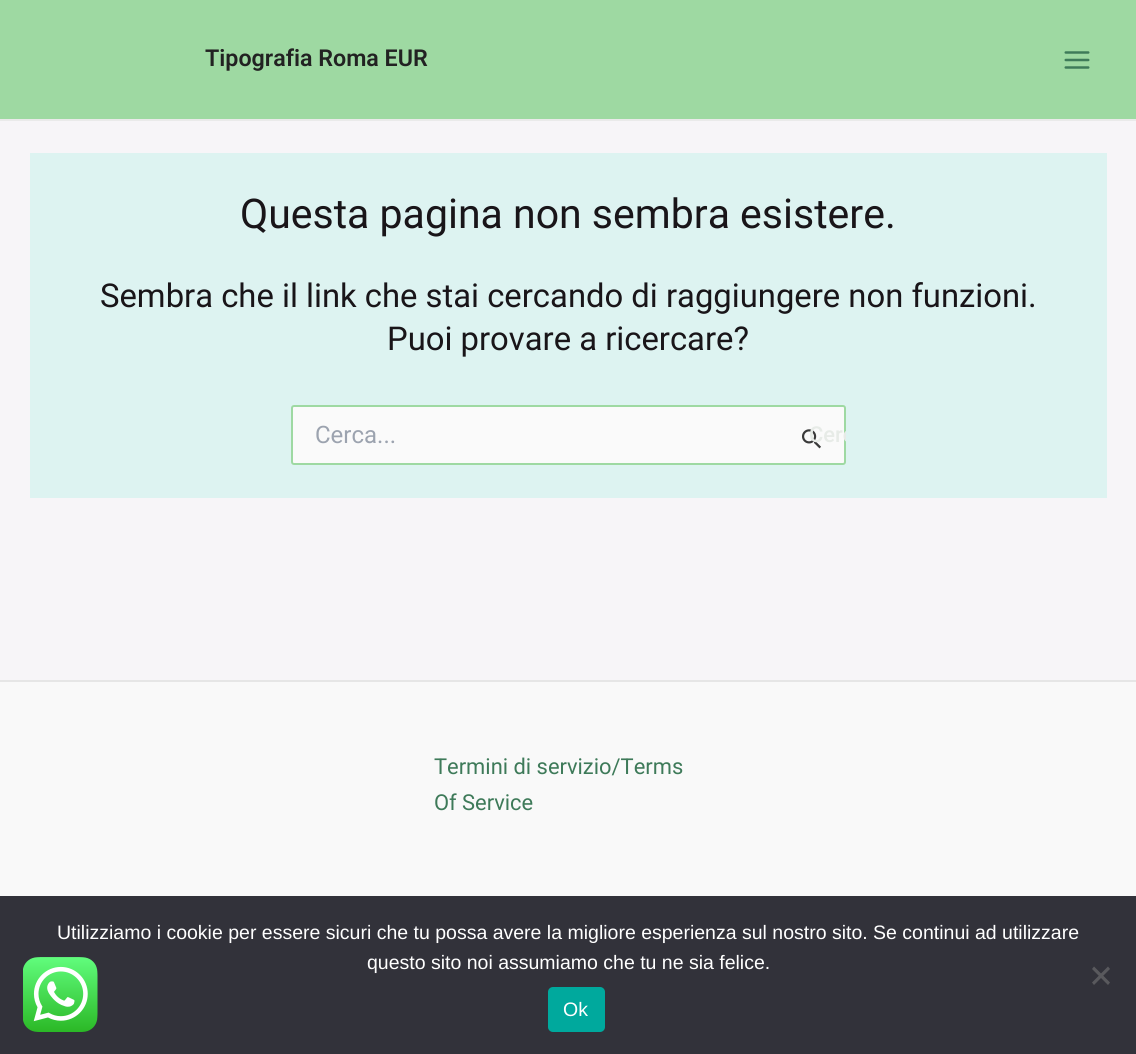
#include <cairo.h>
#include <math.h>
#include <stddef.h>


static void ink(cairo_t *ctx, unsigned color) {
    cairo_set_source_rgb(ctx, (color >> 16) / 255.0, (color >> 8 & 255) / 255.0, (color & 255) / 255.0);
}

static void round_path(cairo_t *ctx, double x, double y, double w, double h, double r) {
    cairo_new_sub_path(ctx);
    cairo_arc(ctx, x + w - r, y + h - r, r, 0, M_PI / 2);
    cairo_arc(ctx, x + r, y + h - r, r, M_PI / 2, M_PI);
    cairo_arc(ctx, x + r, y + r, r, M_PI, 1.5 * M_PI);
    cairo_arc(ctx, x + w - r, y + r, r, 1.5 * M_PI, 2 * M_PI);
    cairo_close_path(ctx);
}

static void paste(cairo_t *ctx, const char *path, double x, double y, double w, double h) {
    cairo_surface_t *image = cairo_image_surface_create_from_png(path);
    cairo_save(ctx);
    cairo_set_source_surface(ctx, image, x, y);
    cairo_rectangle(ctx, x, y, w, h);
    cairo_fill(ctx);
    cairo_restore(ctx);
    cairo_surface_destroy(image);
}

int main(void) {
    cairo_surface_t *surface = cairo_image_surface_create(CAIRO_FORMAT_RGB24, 1136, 1054);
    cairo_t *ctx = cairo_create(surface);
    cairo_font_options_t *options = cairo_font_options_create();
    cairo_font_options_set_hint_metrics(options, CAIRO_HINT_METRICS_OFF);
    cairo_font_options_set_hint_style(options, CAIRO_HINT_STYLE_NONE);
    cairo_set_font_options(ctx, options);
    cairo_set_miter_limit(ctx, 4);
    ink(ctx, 0xF7F5F8);
    cairo_paint(ctx);
    ink(ctx, 0x9ED9A2);
    cairo_rectangle(ctx, 0, 0, 1136, 119);
    cairo_fill(ctx);
    ink(ctx, 0xEAEAEA);
    cairo_rectangle(ctx, 0, 119, 1136, 2);
    cairo_fill(ctx);
    cairo_select_font_face(ctx, "Roboto SemiBold", CAIRO_FONT_SLANT_NORMAL, CAIRO_FONT_WEIGHT_NORMAL);
    cairo_set_font_size(ctx, 23.25);
    ink(ctx, 0x222222);
    cairo_move_to(ctx, 205, 66);
    cairo_show_text(ctx, "Tipografia Roma EUR");
    paste(ctx, "media/1.png", 1064, 51, 26, 18);
    ink(ctx, 0xDDF3F1);
    cairo_rectangle(ctx, 30, 153, 1077, 345);
    cairo_fill(ctx);
    cairo_select_font_face(ctx, "Roboto", CAIRO_FONT_SLANT_NORMAL, CAIRO_FONT_WEIGHT_NORMAL);
    cairo_set_font_size(ctx, 41);
    ink(ctx, 0x191519);
    cairo_move_to(ctx, 240, 228);
    cairo_show_text(ctx, "Questa pagina non sembra esistere.");
    cairo_set_font_size(ctx, 32.8);
    cairo_move_to(ctx, 100, 307);
    cairo_show_text(ctx, "Sembra che il link che stai cercando di raggiungere non funzioni.");
    cairo_move_to(ctx, 387, 350);
    cairo_show_text(ctx, "Puoi provare a ricercare?");
    ink(ctx, 0xFAFAFA);
    round_path(ctx, 292, 406, 553, 58, 2);
    cairo_fill_preserve(ctx);
    ink(ctx, 0x9ED9A2);
    cairo_stroke(ctx);
    cairo_set_font_size(ctx, 24);
    ink(ctx, 0x9CA3AF);
    cairo_move_to(ctx, 315, 443);
    cairo_show_text(ctx, "Cerca...");
    paste(ctx, "media/2.png", 802, 429, 19, 20);
    cairo_save(ctx);
    round_path(ctx, 779, 405, 67, 62, 3);
    cairo_clip(ctx);
    cairo_select_font_face(ctx, "Roboto Medium", CAIRO_FONT_SLANT_NORMAL, CAIRO_FONT_WEIGHT_NORMAL);
    cairo_set_font_size(ctx, 21.9);
    ink(ctx, 0xE7EBE7);
    cairo_move_to(ctx, 809, 442);
    cairo_show_text(ctx, "Cerc");
    cairo_restore(ctx);
    ink(ctx, 0xF9F9F9);
    cairo_rectangle(ctx, 0, 682, 1136, 214);
    cairo_fill(ctx);
    ink(ctx, 0xE6E6E6);
    cairo_rectangle(ctx, 0, 680, 1136, 2);
    cairo_fill(ctx);
    cairo_set_font_size(ctx, 21.9);
    ink(ctx, 0x3E7A59);
    cairo_move_to(ctx, 434, 774);
    cairo_show_text(ctx, "Termini di servizio/Terms");
    cairo_move_to(ctx, 434, 810);
    cairo_show_text(ctx, "Of Service");
    ink(ctx, 0x32323A);
    cairo_rectangle(ctx, 0, 896, 1136, 158);
    cairo_fill(ctx);
    cairo_select_font_face(ctx, "Liberation Sans", CAIRO_FONT_SLANT_NORMAL, CAIRO_FONT_WEIGHT_NORMAL);
    cairo_set_font_size(ctx, 19.5);
    ink(ctx, 0xFFFFFF);
    cairo_move_to(ctx, 57, 939);
    cairo_show_text(ctx, "Utilizziamo i cookie per essere sicuri che tu possa avere la migliore esperienza sul nostro sito. Se continui ad utilizzare");
    cairo_move_to(ctx, 367, 969);
    cairo_show_text(ctx, "questo sito noi assumiamo che tu ne sia felice.");
    ink(ctx, 0x59595D);
    cairo_new_path(ctx);
    cairo_move_to(ctx, 1108, 966.5);
    cairo_line_to(ctx, 1110, 969);
    cairo_line_to(ctx, 1094, 985);
    cairo_line_to(ctx, 1092, 982.5);
    cairo_close_path(ctx);
    cairo_fill(ctx);
    cairo_new_path(ctx);
    cairo_move_to(ctx, 1092, 969);
    cairo_line_to(ctx, 1094, 966.5);
    cairo_line_to(ctx, 1110, 982.5);
    cairo_line_to(ctx, 1108, 985);
    cairo_close_path(ctx);
    cairo_fill(ctx);
    ink(ctx, 0x00A99D);
    round_path(ctx, 548, 987, 57, 45, 5);
    cairo_fill(ctx);
    ink(ctx, 0xFFFFFF);
    cairo_move_to(ctx, 563, 1016);
    cairo_show_text(ctx, "Ok");
    paste(ctx, "media/3.png", 23, 957, 75, 75);
    cairo_surface_write_to_png(surface, "image.png");
    cairo_font_options_destroy(options);
    cairo_destroy(ctx);
    cairo_surface_destroy(surface);
    return 0;
}
